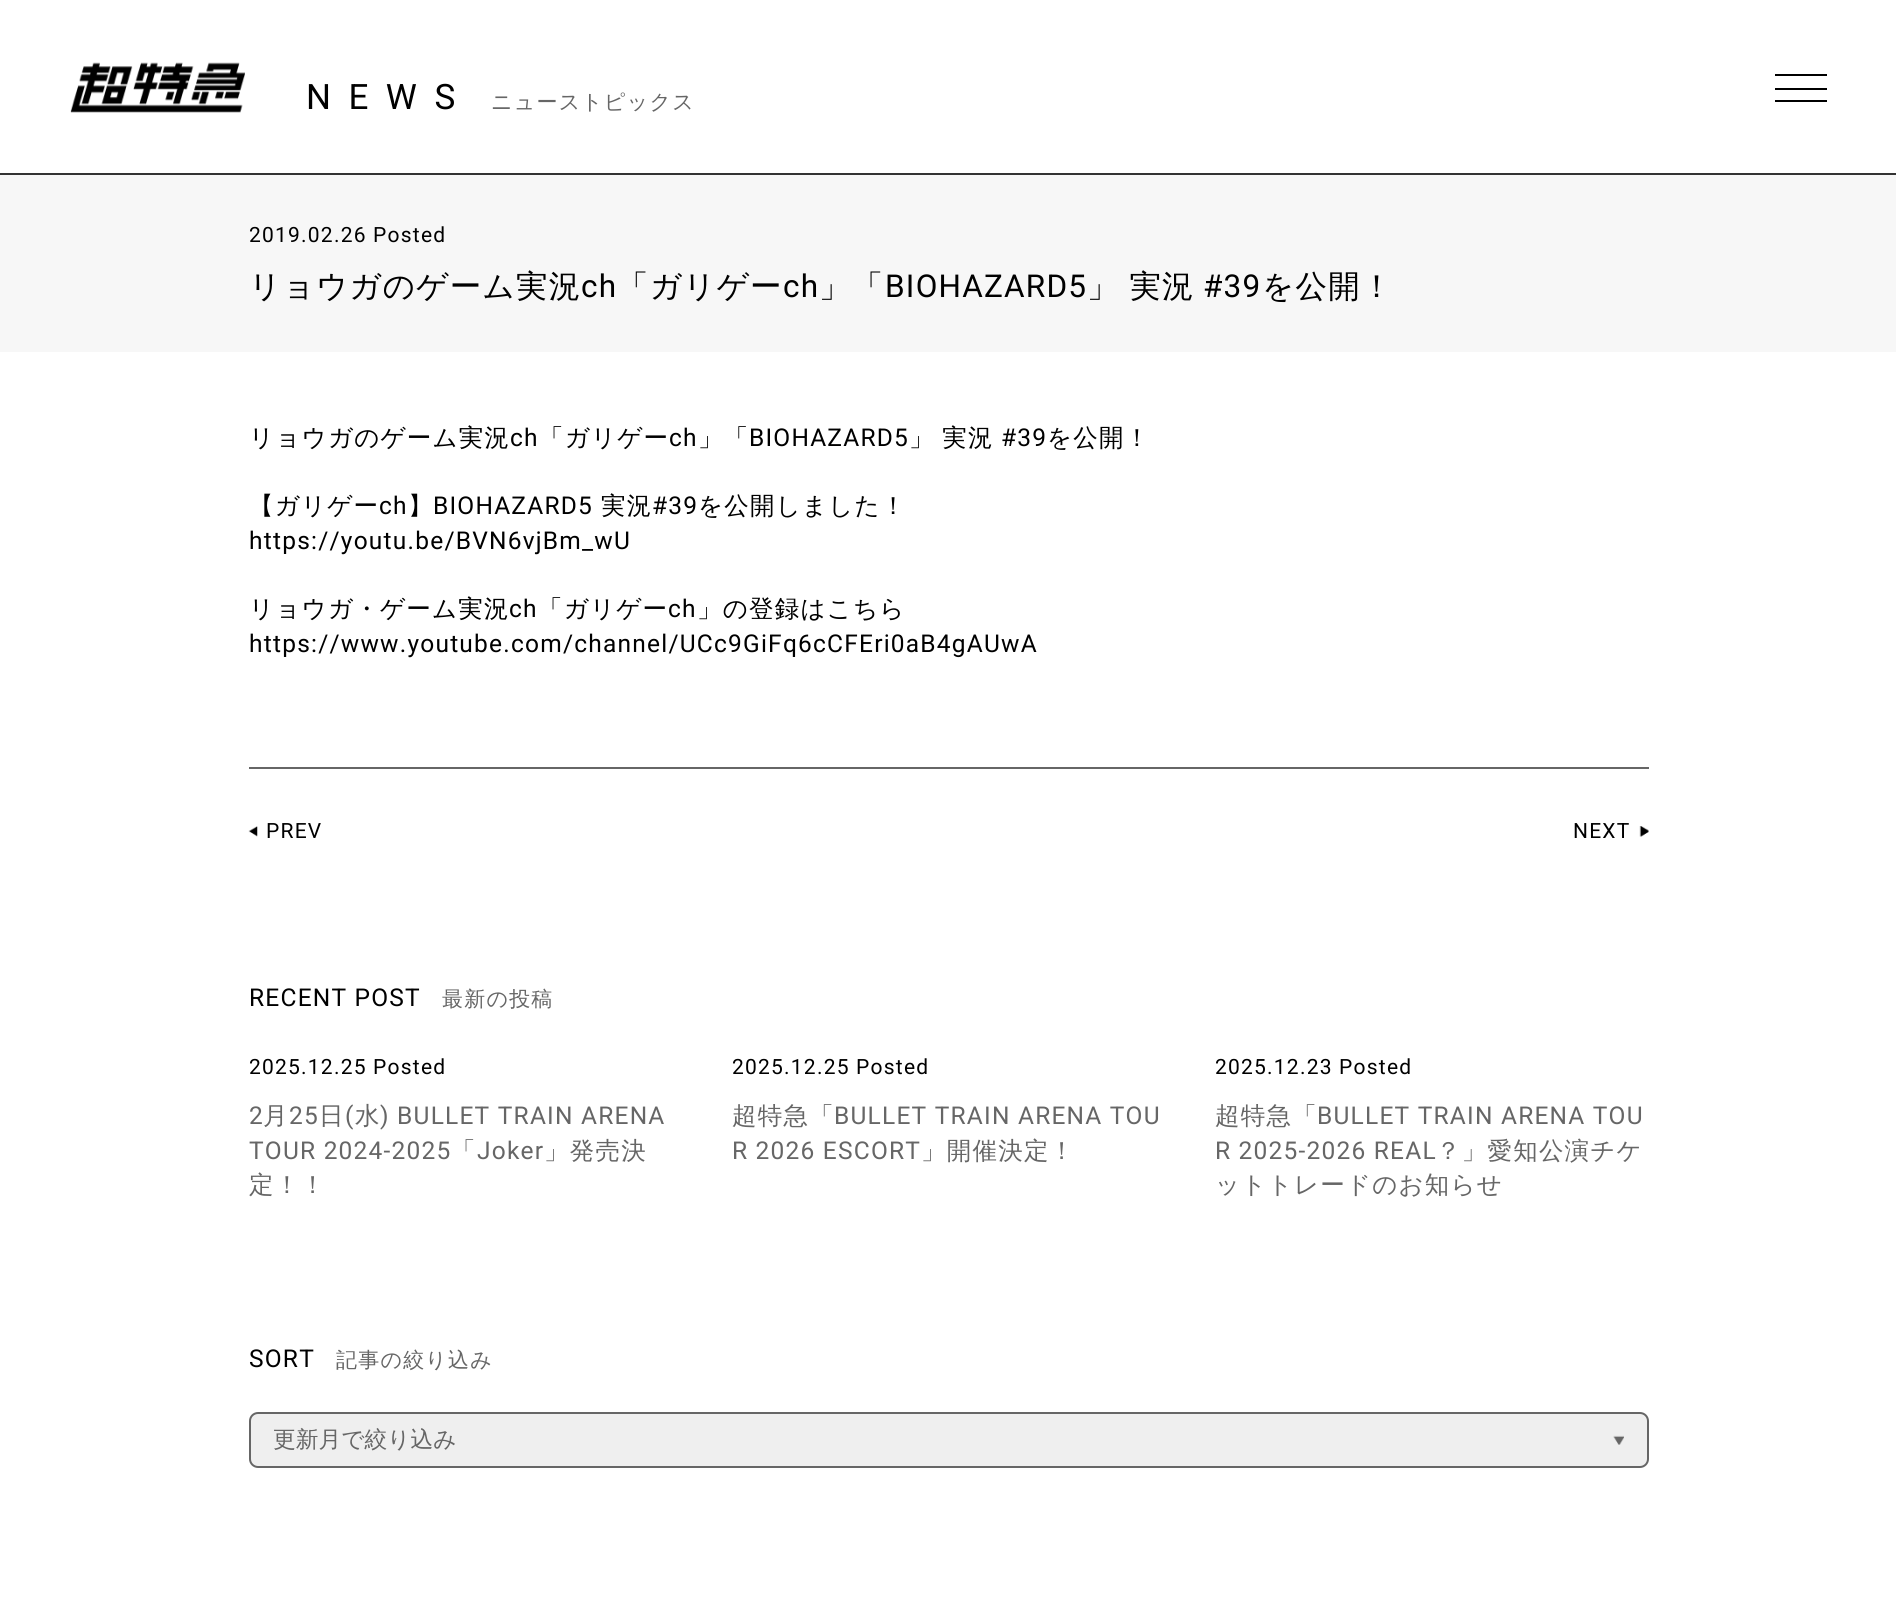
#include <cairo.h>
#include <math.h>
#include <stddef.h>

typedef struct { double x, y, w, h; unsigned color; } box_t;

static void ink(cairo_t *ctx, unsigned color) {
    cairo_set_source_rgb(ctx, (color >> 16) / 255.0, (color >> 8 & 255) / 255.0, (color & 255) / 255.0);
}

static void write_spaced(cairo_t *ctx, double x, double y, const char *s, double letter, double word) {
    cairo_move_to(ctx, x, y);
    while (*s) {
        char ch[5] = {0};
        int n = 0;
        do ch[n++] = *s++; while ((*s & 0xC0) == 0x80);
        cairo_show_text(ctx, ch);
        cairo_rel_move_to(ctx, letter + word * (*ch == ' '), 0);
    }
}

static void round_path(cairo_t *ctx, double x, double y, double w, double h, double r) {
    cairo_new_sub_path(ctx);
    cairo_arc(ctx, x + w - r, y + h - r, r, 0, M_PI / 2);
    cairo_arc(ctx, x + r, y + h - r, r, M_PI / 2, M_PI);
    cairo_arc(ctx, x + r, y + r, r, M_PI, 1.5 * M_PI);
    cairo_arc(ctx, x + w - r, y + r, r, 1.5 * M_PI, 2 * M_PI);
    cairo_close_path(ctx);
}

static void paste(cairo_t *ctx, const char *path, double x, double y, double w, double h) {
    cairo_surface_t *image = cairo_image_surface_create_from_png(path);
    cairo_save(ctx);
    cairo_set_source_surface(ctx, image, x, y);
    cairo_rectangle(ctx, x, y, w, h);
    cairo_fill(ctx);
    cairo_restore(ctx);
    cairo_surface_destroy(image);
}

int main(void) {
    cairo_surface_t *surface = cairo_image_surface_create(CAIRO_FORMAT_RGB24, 1896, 1613);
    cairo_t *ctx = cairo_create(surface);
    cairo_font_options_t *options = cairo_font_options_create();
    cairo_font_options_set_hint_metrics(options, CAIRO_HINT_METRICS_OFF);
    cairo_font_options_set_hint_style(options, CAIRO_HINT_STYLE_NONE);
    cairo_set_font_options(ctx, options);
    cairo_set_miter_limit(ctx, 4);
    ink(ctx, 0xFFFFFF);
    cairo_paint(ctx);
    ink(ctx, 0x333333);
    cairo_rectangle(ctx, 0, 173, 1896, 2);
    cairo_fill(ctx);
    paste(ctx, "media/1.png", 70, 62, 175, 51);
    {
        static const box_t items[] = {
            {1775, 74, 52, 2, 0x000000},
            {1775, 88, 52, 2, 0x000000},
            {1775, 100, 52, 2, 0x000000},
            {249, 767, 1400, 2, 0x666666},
        };
        for (size_t i = 0; i < sizeof items / sizeof *items; i++) {
            ink(ctx, items[i].color);
            cairo_rectangle(ctx, items[i].x, items[i].y, items[i].w, items[i].h);
            cairo_fill(ctx);
        }
    }
    cairo_select_font_face(ctx, "Roboto", CAIRO_FONT_SLANT_NORMAL, CAIRO_FONT_WEIGHT_NORMAL);
    cairo_set_font_size(ctx, 35);
    ink(ctx, 0x000000);
    write_spaced(ctx, 306, 109, "NEWS", 17.5, 0);
    cairo_select_font_face(ctx, "WenQuanYi Zen Hei Medium", CAIRO_FONT_SLANT_NORMAL, CAIRO_FONT_WEIGHT_NORMAL);
    cairo_set_font_size(ctx, 21);
    ink(ctx, 0x666666);
    write_spaced(ctx, 491, 109, "ニューストピックス", 1.22, 0);
    ink(ctx, 0xF7F7F7);
    cairo_rectangle(ctx, 0, 175, 1896, 177);
    cairo_fill(ctx);
    cairo_select_font_face(ctx, "Roboto", CAIRO_FONT_SLANT_NORMAL, CAIRO_FONT_WEIGHT_NORMAL);
    ink(ctx, 0x000000);
    write_spaced(ctx, 249, 242, "2019.02.26 Posted", 1.22, 0);
    cairo_select_font_face(ctx, "WenQuanYi Zen Hei Medium", CAIRO_FONT_SLANT_NORMAL, CAIRO_FONT_WEIGHT_NORMAL);
    cairo_set_font_size(ctx, 31.5);
    write_spaced(ctx, 249, 297, "リョウガのゲーム実況", 1.22, 0);
    cairo_select_font_face(ctx, "Roboto", CAIRO_FONT_SLANT_NORMAL, CAIRO_FONT_WEIGHT_NORMAL);
    write_spaced(ctx, 581, 297, "ch", 1.22, 0);
    cairo_select_font_face(ctx, "WenQuanYi Zen Hei Medium", CAIRO_FONT_SLANT_NORMAL, CAIRO_FONT_WEIGHT_NORMAL);
    write_spaced(ctx, 617, 297, "「ガリゲー", 1.22, 0);
    cairo_select_font_face(ctx, "Roboto", CAIRO_FONT_SLANT_NORMAL, CAIRO_FONT_WEIGHT_NORMAL);
    write_spaced(ctx, 783, 297, "ch", 1.22, 0);
    cairo_select_font_face(ctx, "WenQuanYi Zen Hei Medium", CAIRO_FONT_SLANT_NORMAL, CAIRO_FONT_WEIGHT_NORMAL);
    write_spaced(ctx, 819, 297, "」「", 1.22, 0);
    cairo_select_font_face(ctx, "Roboto", CAIRO_FONT_SLANT_NORMAL, CAIRO_FONT_WEIGHT_NORMAL);
    write_spaced(ctx, 885, 297, "BIOHAZARD5", 1.22, 0);
    cairo_select_font_face(ctx, "WenQuanYi Zen Hei Medium", CAIRO_FONT_SLANT_NORMAL, CAIRO_FONT_WEIGHT_NORMAL);
    write_spaced(ctx, 1087, 297, "」 実況", 1.22, -1);
    cairo_select_font_face(ctx, "Roboto", CAIRO_FONT_SLANT_NORMAL, CAIRO_FONT_WEIGHT_NORMAL);
    write_spaced(ctx, 1203, 297, "#39", 1.22, 0);
    cairo_select_font_face(ctx, "WenQuanYi Zen Hei Medium", CAIRO_FONT_SLANT_NORMAL, CAIRO_FONT_WEIGHT_NORMAL);
    write_spaced(ctx, 1262, 297, "を公開！", 1.22, 0);
    cairo_set_font_size(ctx, 24.5);
    write_spaced(ctx, 249, 446, "リョウガのゲーム実況", 1.22, 0);
    cairo_select_font_face(ctx, "Roboto", CAIRO_FONT_SLANT_NORMAL, CAIRO_FONT_WEIGHT_NORMAL);
    write_spaced(ctx, 510, 446, "ch", 1.22, 0);
    cairo_select_font_face(ctx, "WenQuanYi Zen Hei Medium", CAIRO_FONT_SLANT_NORMAL, CAIRO_FONT_WEIGHT_NORMAL);
    write_spaced(ctx, 539, 446, "「ガリゲー", 1.22, 0);
    cairo_select_font_face(ctx, "Roboto", CAIRO_FONT_SLANT_NORMAL, CAIRO_FONT_WEIGHT_NORMAL);
    write_spaced(ctx, 669, 446, "ch", 1.22, 0);
    cairo_select_font_face(ctx, "WenQuanYi Zen Hei Medium", CAIRO_FONT_SLANT_NORMAL, CAIRO_FONT_WEIGHT_NORMAL);
    write_spaced(ctx, 698, 446, "」「", 1.22, 0);
    cairo_select_font_face(ctx, "Roboto", CAIRO_FONT_SLANT_NORMAL, CAIRO_FONT_WEIGHT_NORMAL);
    write_spaced(ctx, 749, 446, "BIOHAZARD5", 1.22, 0);
    cairo_select_font_face(ctx, "WenQuanYi Zen Hei Medium", CAIRO_FONT_SLANT_NORMAL, CAIRO_FONT_WEIGHT_NORMAL);
    write_spaced(ctx, 909, 446, "」 実況", 1.22, -1);
    cairo_select_font_face(ctx, "Roboto", CAIRO_FONT_SLANT_NORMAL, CAIRO_FONT_WEIGHT_NORMAL);
    write_spaced(ctx, 1001, 446, "#39", 1.22, 0);
    cairo_select_font_face(ctx, "WenQuanYi Zen Hei Medium", CAIRO_FONT_SLANT_NORMAL, CAIRO_FONT_WEIGHT_NORMAL);
    write_spaced(ctx, 1047, 446, "を公開！", 1.22, 0);
    write_spaced(ctx, 249, 514, "【ガリゲー", 1.22, 0);
    cairo_select_font_face(ctx, "Roboto", CAIRO_FONT_SLANT_NORMAL, CAIRO_FONT_WEIGHT_NORMAL);
    write_spaced(ctx, 379, 514, "ch", 1.22, 0);
    cairo_select_font_face(ctx, "WenQuanYi Zen Hei Medium", CAIRO_FONT_SLANT_NORMAL, CAIRO_FONT_WEIGHT_NORMAL);
    write_spaced(ctx, 408, 514, "】", 1.22, 0);
    cairo_select_font_face(ctx, "Roboto", CAIRO_FONT_SLANT_NORMAL, CAIRO_FONT_WEIGHT_NORMAL);
    write_spaced(ctx, 433, 514, "BIOHAZARD5", 1.22, 0);
    cairo_select_font_face(ctx, "WenQuanYi Zen Hei Medium", CAIRO_FONT_SLANT_NORMAL, CAIRO_FONT_WEIGHT_NORMAL);
    write_spaced(ctx, 601, 514, "実況", 1.22, 0);
    cairo_select_font_face(ctx, "Roboto", CAIRO_FONT_SLANT_NORMAL, CAIRO_FONT_WEIGHT_NORMAL);
    write_spaced(ctx, 652, 514, "#39", 1.22, 0);
    cairo_select_font_face(ctx, "WenQuanYi Zen Hei Medium", CAIRO_FONT_SLANT_NORMAL, CAIRO_FONT_WEIGHT_NORMAL);
    write_spaced(ctx, 698, 514, "を公開しました！", 1.22, 0);
    cairo_select_font_face(ctx, "Roboto", CAIRO_FONT_SLANT_NORMAL, CAIRO_FONT_WEIGHT_NORMAL);
    write_spaced(ctx, 249, 549, "https://youtu.be/BVN6vjBm_wU", 1.22, 0);
    cairo_select_font_face(ctx, "WenQuanYi Zen Hei Medium", CAIRO_FONT_SLANT_NORMAL, CAIRO_FONT_WEIGHT_NORMAL);
    write_spaced(ctx, 249, 617, "リョウガ・ゲーム実況", 1.22, 0);
    cairo_select_font_face(ctx, "Roboto", CAIRO_FONT_SLANT_NORMAL, CAIRO_FONT_WEIGHT_NORMAL);
    write_spaced(ctx, 509, 617, "ch", 1.22, 0);
    cairo_select_font_face(ctx, "WenQuanYi Zen Hei Medium", CAIRO_FONT_SLANT_NORMAL, CAIRO_FONT_WEIGHT_NORMAL);
    write_spaced(ctx, 538, 617, "「ガリゲー", 1.22, 0);
    cairo_select_font_face(ctx, "Roboto", CAIRO_FONT_SLANT_NORMAL, CAIRO_FONT_WEIGHT_NORMAL);
    write_spaced(ctx, 668, 617, "ch", 1.22, 0);
    cairo_select_font_face(ctx, "WenQuanYi Zen Hei Medium", CAIRO_FONT_SLANT_NORMAL, CAIRO_FONT_WEIGHT_NORMAL);
    write_spaced(ctx, 697, 617, "」の登録はこちら", 1.22, 0);
    cairo_select_font_face(ctx, "Roboto", CAIRO_FONT_SLANT_NORMAL, CAIRO_FONT_WEIGHT_NORMAL);
    write_spaced(ctx, 249, 652, "https://www.youtube.com/channel/UCc9GiFq6cCFEri0aB4gAUwA", 1.22, 0);
    paste(ctx, "media/2.png", 248, 826, 10, 11);
    cairo_set_font_size(ctx, 21);
    write_spaced(ctx, 266, 838, "PREV", 1.22, 0);
    paste(ctx, "media/3.png", 1639, 826, 10, 11);
    write_spaced(ctx, 1573, 838, "NEXT", 1.22, 0);
    cairo_set_font_size(ctx, 24.5);
    write_spaced(ctx, 249, 1006, "RECENT POST", 1.22, 0);
    cairo_select_font_face(ctx, "WenQuanYi Zen Hei Medium", CAIRO_FONT_SLANT_NORMAL, CAIRO_FONT_WEIGHT_NORMAL);
    cairo_set_font_size(ctx, 21);
    ink(ctx, 0x666666);
    write_spaced(ctx, 442, 1006, "最新の投稿", 1.22, 0);
    cairo_select_font_face(ctx, "Roboto", CAIRO_FONT_SLANT_NORMAL, CAIRO_FONT_WEIGHT_NORMAL);
    ink(ctx, 0x000000);
    write_spaced(ctx, 249, 1074, "2025.12.25 Posted", 1.22, 0);
    cairo_set_font_size(ctx, 24.5);
    ink(ctx, 0x666666);
    write_spaced(ctx, 249, 1124, "2", 1.22, 0);
    cairo_select_font_face(ctx, "WenQuanYi Zen Hei Medium", CAIRO_FONT_SLANT_NORMAL, CAIRO_FONT_WEIGHT_NORMAL);
    write_spaced(ctx, 263, 1124, "月", 1.22, 0);
    cairo_select_font_face(ctx, "Roboto", CAIRO_FONT_SLANT_NORMAL, CAIRO_FONT_WEIGHT_NORMAL);
    write_spaced(ctx, 289, 1124, "25", 1.22, 0);
    cairo_select_font_face(ctx, "WenQuanYi Zen Hei Medium", CAIRO_FONT_SLANT_NORMAL, CAIRO_FONT_WEIGHT_NORMAL);
    write_spaced(ctx, 319, 1124, "日", 1.22, 0);
    cairo_select_font_face(ctx, "Roboto", CAIRO_FONT_SLANT_NORMAL, CAIRO_FONT_WEIGHT_NORMAL);
    write_spaced(ctx, 345, 1124, "(", 1.22, 0);
    cairo_select_font_face(ctx, "WenQuanYi Zen Hei Medium", CAIRO_FONT_SLANT_NORMAL, CAIRO_FONT_WEIGHT_NORMAL);
    write_spaced(ctx, 355, 1124, "水", 1.22, 0);
    cairo_select_font_face(ctx, "Roboto", CAIRO_FONT_SLANT_NORMAL, CAIRO_FONT_WEIGHT_NORMAL);
    write_spaced(ctx, 380, 1124, ") BULLET TRAIN ARENA", 1.22, 0);
    write_spaced(ctx, 249, 1159, "TOUR 2024-2025", 1.22, 0);
    cairo_select_font_face(ctx, "WenQuanYi Zen Hei Medium", CAIRO_FONT_SLANT_NORMAL, CAIRO_FONT_WEIGHT_NORMAL);
    write_spaced(ctx, 451, 1159, "「", 1.22, 0);
    cairo_select_font_face(ctx, "Roboto", CAIRO_FONT_SLANT_NORMAL, CAIRO_FONT_WEIGHT_NORMAL);
    write_spaced(ctx, 477, 1159, "Joker", 1.22, 0);
    cairo_select_font_face(ctx, "WenQuanYi Zen Hei Medium", CAIRO_FONT_SLANT_NORMAL, CAIRO_FONT_WEIGHT_NORMAL);
    write_spaced(ctx, 544, 1159, "」発売決", 1.22, 0);
    write_spaced(ctx, 249, 1193, "定！！", 1.22, 0);
    cairo_select_font_face(ctx, "Roboto", CAIRO_FONT_SLANT_NORMAL, CAIRO_FONT_WEIGHT_NORMAL);
    cairo_set_font_size(ctx, 21);
    ink(ctx, 0x000000);
    write_spaced(ctx, 732, 1074, "2025.12.25 Posted", 1.22, 0);
    cairo_select_font_face(ctx, "WenQuanYi Zen Hei Medium", CAIRO_FONT_SLANT_NORMAL, CAIRO_FONT_WEIGHT_NORMAL);
    cairo_set_font_size(ctx, 24.5);
    ink(ctx, 0x666666);
    write_spaced(ctx, 732, 1124, "超特急「", 1.22, 0);
    cairo_select_font_face(ctx, "Roboto", CAIRO_FONT_SLANT_NORMAL, CAIRO_FONT_WEIGHT_NORMAL);
    write_spaced(ctx, 834, 1124, "BULLET TRAIN ARENA TOU", 1.22, 0);
    write_spaced(ctx, 732, 1159, "R 2026 ESCORT", 1.22, 0);
    cairo_select_font_face(ctx, "WenQuanYi Zen Hei Medium", CAIRO_FONT_SLANT_NORMAL, CAIRO_FONT_WEIGHT_NORMAL);
    write_spaced(ctx, 921, 1159, "」開催決定！", 1.22, 0);
    cairo_select_font_face(ctx, "Roboto", CAIRO_FONT_SLANT_NORMAL, CAIRO_FONT_WEIGHT_NORMAL);
    cairo_set_font_size(ctx, 21);
    ink(ctx, 0x000000);
    write_spaced(ctx, 1215, 1074, "2025.12.23 Posted", 1.22, 0);
    cairo_select_font_face(ctx, "WenQuanYi Zen Hei Medium", CAIRO_FONT_SLANT_NORMAL, CAIRO_FONT_WEIGHT_NORMAL);
    cairo_set_font_size(ctx, 24.5);
    ink(ctx, 0x666666);
    write_spaced(ctx, 1215, 1124, "超特急「", 1.22, 0);
    cairo_select_font_face(ctx, "Roboto", CAIRO_FONT_SLANT_NORMAL, CAIRO_FONT_WEIGHT_NORMAL);
    write_spaced(ctx, 1317, 1124, "BULLET TRAIN ARENA TOU", 1.22, 0);
    write_spaced(ctx, 1215, 1159, "R 2025-2026 REAL", 1.22, 0);
    cairo_select_font_face(ctx, "WenQuanYi Zen Hei Medium", CAIRO_FONT_SLANT_NORMAL, CAIRO_FONT_WEIGHT_NORMAL);
    write_spaced(ctx, 1436, 1159, "？」愛知公演チケ", 1.22, 0);
    write_spaced(ctx, 1215, 1193, "ットトレードのお知らせ", 1.22, 0);
    cairo_select_font_face(ctx, "Roboto", CAIRO_FONT_SLANT_NORMAL, CAIRO_FONT_WEIGHT_NORMAL);
    ink(ctx, 0x000000);
    write_spaced(ctx, 249, 1367, "SORT", 1.22, 0);
    cairo_select_font_face(ctx, "WenQuanYi Zen Hei Medium", CAIRO_FONT_SLANT_NORMAL, CAIRO_FONT_WEIGHT_NORMAL);
    cairo_set_font_size(ctx, 21);
    ink(ctx, 0x666666);
    write_spaced(ctx, 336, 1367, "記事の絞り込み", 1.22, 0);
    ink(ctx, 0xEFEFEF);
    round_path(ctx, 250, 1413, 1398, 54, 8);
    cairo_fill_preserve(ctx);
    ink(ctx, 0x666666);
    cairo_stroke(ctx);
    cairo_set_font_size(ctx, 22.75);
    cairo_move_to(ctx, 273, 1447);
    cairo_show_text(ctx, "更新月で絞り込み");
    paste(ctx, "media/4.png", 1613, 1435, 11, 10);
    cairo_surface_write_to_png(surface, "image.png");
    cairo_font_options_destroy(options);
    cairo_destroy(ctx);
    cairo_surface_destroy(surface);
    return 0;
}
